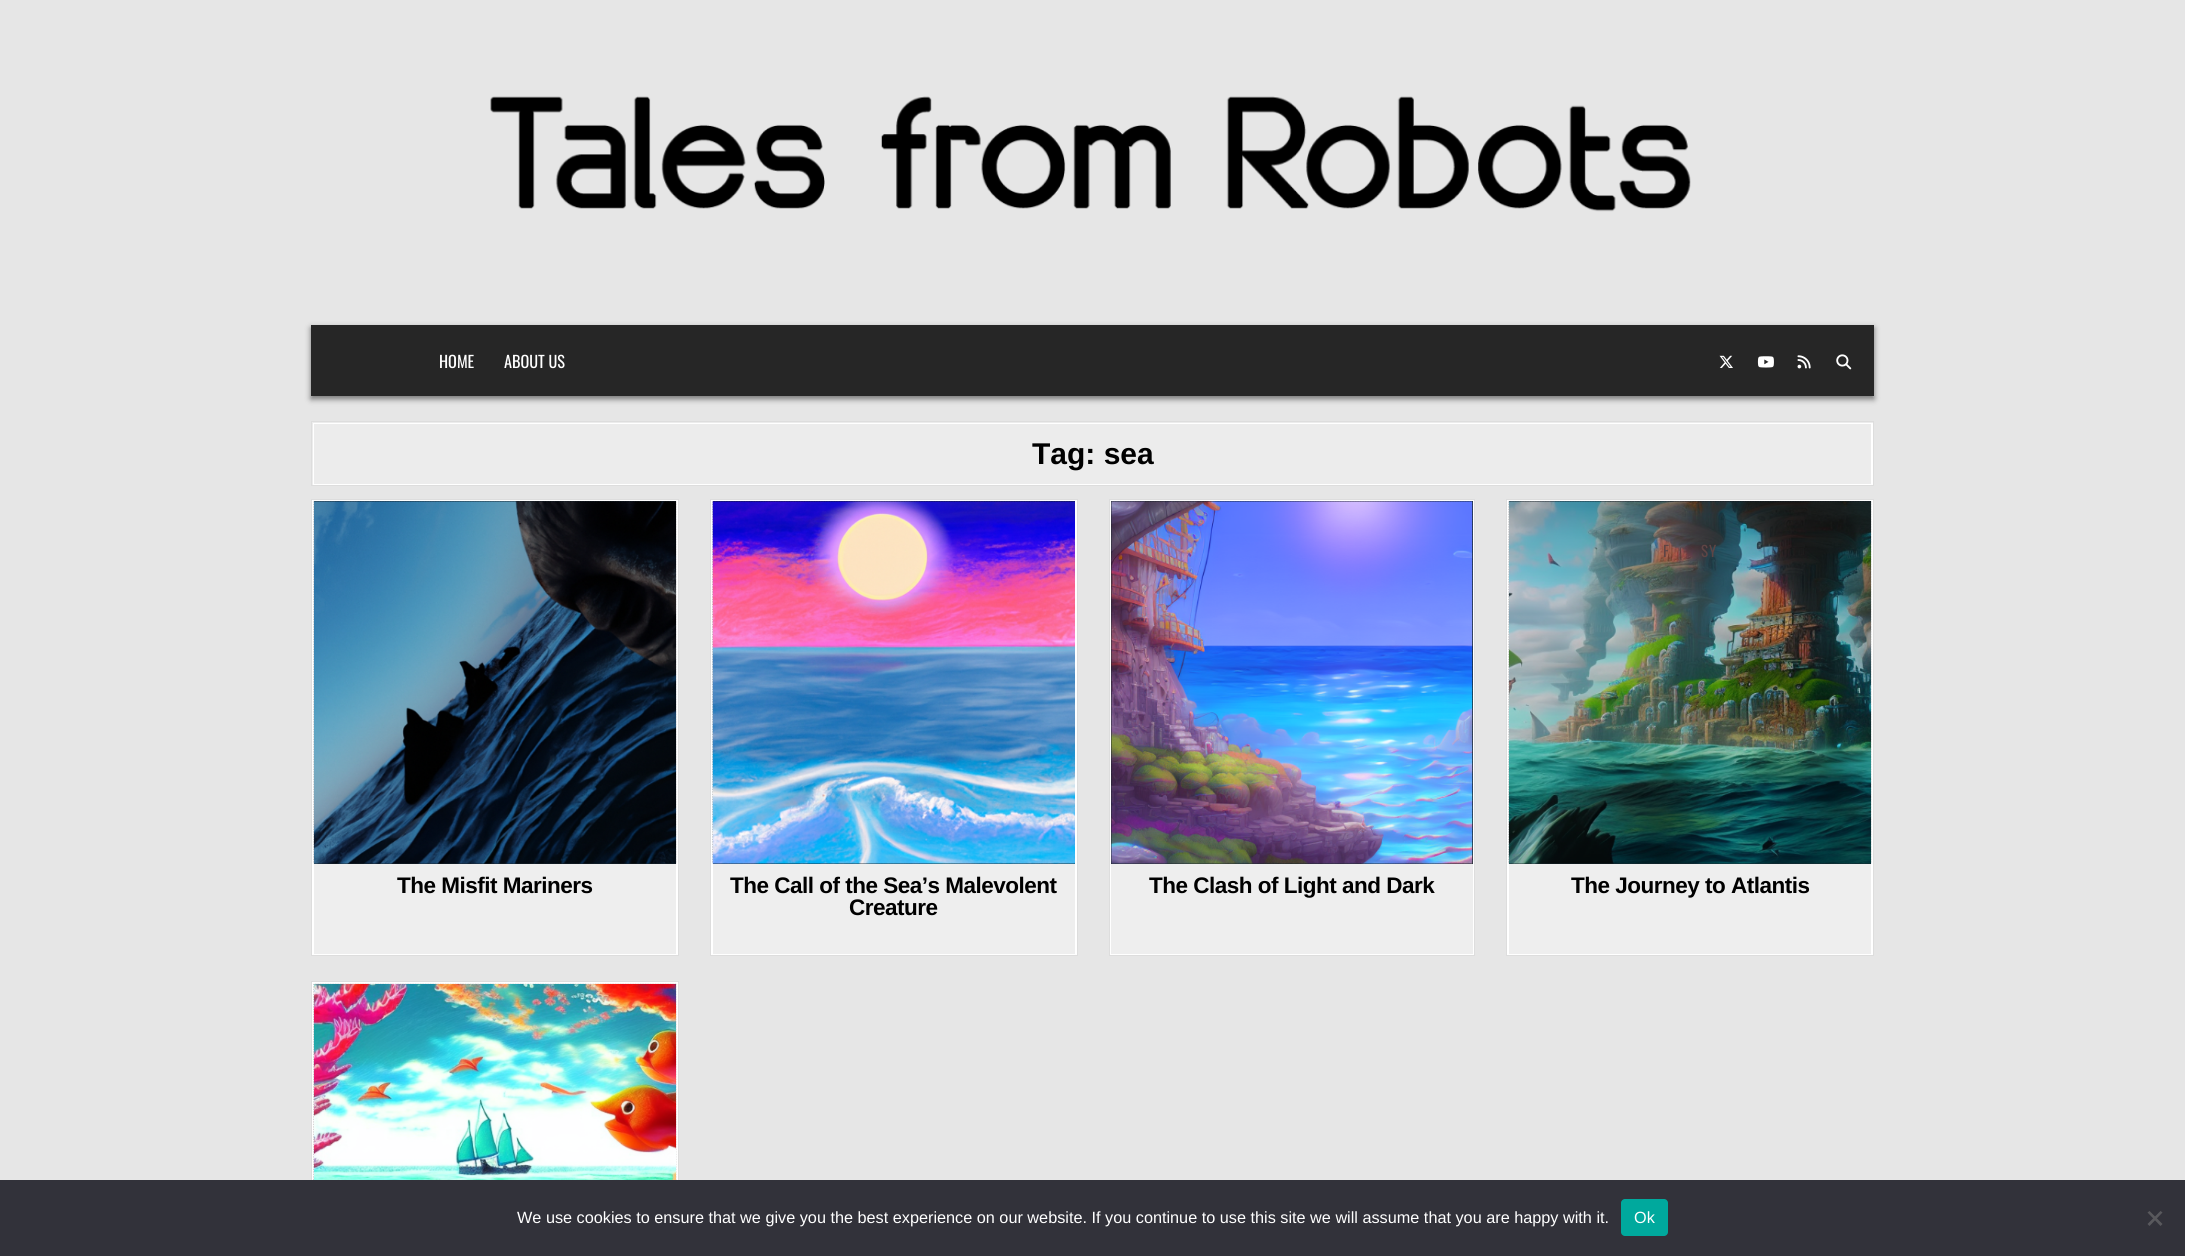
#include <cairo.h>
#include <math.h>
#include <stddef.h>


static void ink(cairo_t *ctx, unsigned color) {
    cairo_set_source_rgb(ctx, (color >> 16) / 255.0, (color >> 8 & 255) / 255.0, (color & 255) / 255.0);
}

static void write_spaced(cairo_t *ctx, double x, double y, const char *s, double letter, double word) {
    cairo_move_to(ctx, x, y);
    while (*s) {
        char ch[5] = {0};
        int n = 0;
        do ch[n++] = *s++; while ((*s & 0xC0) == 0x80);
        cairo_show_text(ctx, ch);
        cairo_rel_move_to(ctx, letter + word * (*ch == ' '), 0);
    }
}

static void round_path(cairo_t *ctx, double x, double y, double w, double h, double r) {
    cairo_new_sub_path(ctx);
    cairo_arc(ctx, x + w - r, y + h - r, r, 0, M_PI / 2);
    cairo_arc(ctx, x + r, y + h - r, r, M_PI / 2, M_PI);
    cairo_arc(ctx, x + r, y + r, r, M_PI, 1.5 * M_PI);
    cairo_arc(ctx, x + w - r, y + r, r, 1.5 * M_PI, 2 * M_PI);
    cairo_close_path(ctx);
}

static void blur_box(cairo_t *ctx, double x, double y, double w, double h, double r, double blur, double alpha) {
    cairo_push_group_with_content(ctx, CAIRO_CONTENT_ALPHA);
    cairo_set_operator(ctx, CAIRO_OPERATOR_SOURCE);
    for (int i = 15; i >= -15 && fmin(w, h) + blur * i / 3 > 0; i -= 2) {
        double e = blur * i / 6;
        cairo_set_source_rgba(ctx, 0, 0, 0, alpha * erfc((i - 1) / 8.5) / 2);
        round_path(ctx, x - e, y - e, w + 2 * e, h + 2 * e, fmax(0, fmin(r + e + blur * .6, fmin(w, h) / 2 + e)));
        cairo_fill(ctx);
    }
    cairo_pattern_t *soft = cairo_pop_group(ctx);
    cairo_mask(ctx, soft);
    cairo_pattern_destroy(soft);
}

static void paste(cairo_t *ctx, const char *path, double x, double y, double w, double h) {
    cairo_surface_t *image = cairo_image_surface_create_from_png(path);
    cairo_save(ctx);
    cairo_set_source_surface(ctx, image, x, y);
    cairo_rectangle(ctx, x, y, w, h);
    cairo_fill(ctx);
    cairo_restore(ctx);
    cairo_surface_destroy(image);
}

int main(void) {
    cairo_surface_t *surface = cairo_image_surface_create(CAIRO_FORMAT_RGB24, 2185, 1256);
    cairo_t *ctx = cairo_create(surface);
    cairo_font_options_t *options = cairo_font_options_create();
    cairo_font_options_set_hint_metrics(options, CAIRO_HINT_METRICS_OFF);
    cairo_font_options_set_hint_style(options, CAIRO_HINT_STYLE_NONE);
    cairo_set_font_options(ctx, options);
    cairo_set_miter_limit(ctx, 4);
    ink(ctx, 0xE6E6E6);
    cairo_paint(ctx);
    paste(ctx, "media/1.png", 490, 96, 1201, 116);
    ink(ctx, 0x000000);
    blur_box(ctx, 311, 328, 1563, 71, 0, 3, 0.5);
    ink(ctx, 0x262626);
    cairo_rectangle(ctx, 311, 325, 1563, 71);
    cairo_fill(ctx);
    cairo_select_font_face(ctx, "Oswald", CAIRO_FONT_SLANT_NORMAL, CAIRO_FONT_WEIGHT_NORMAL);
    cairo_set_font_size(ctx, 16.25);
    ink(ctx, 0xFFFFFF);
    cairo_move_to(ctx, 439, 368);
    cairo_show_text(ctx, "HOME");
    cairo_move_to(ctx, 504, 368);
    cairo_show_text(ctx, "ABOUT US");
    paste(ctx, "media/2.png", 1719, 355, 14, 13);
    paste(ctx, "media/3.png", 1757, 356, 17, 12);
    paste(ctx, "media/4.png", 1797, 355, 14, 14);
    paste(ctx, "media/5.png", 1836, 354, 16, 16);
    ink(ctx, 0xECECEC);
    cairo_rectangle(ctx, 312, 422, 1561, 63);
    cairo_fill(ctx);
    cairo_save(ctx);
    cairo_rectangle(ctx, 313, 423, 1560, 62);
    cairo_clip(ctx);
    ink(ctx, 0xFFFFFF);
    cairo_set_fill_rule(ctx, CAIRO_FILL_RULE_EVEN_ODD);
    cairo_new_path(ctx);
    cairo_move_to(ctx, 189, 299);
    cairo_line_to(ctx, 1996, 299);
    cairo_line_to(ctx, 1996, 609);
    cairo_line_to(ctx, 189, 609);
    cairo_close_path(ctx);
    cairo_move_to(ctx, 311, 421);
    cairo_line_to(ctx, 1871, 421);
    cairo_line_to(ctx, 1871, 484);
    cairo_line_to(ctx, 311, 484);
    cairo_close_path(ctx);
    cairo_fill(ctx);
    cairo_new_path(ctx);
    cairo_move_to(ctx, 189, 299);
    cairo_line_to(ctx, 1996, 299);
    cairo_line_to(ctx, 1996, 609);
    cairo_line_to(ctx, 189, 609);
    cairo_close_path(ctx);
    cairo_move_to(ctx, 314, 424);
    cairo_line_to(ctx, 1874, 424);
    cairo_line_to(ctx, 1874, 486);
    cairo_line_to(ctx, 314, 486);
    cairo_close_path(ctx);
    cairo_fill(ctx);
    cairo_restore(ctx);
    cairo_rectangle(ctx, 311.5, 421.5, 1562, 64);
    ink(ctx, 0xDDDDDD);
    cairo_set_line_width(ctx, 1);
    cairo_stroke(ctx);
    cairo_select_font_face(ctx, "Liberation Sans", CAIRO_FONT_SLANT_NORMAL, CAIRO_FONT_WEIGHT_BOLD);
    cairo_set_font_size(ctx, 30);
    ink(ctx, 0x000000);
    cairo_move_to(ctx, 1032, 464);
    cairo_show_text(ctx, "Tag: sea");
    ink(ctx, 0xFFFFFF);
    cairo_rectangle(ctx, 311.5, 499.5, 367, 456);
    cairo_fill_preserve(ctx);
    ink(ctx, 0xDDDDDD);
    cairo_stroke(ctx);
    ink(ctx, 0x1E2B34);
    cairo_rectangle(ctx, 314, 501, 362, 363);
    cairo_fill(ctx);
    paste(ctx, "media/6.png", 313, 501, 364, 363);
    paste(ctx, "media/7.png", 313, 501, 364, 363);
    ink(ctx, 0xEEEEEE);
    cairo_rectangle(ctx, 314, 864, 362, 90);
    cairo_fill(ctx);
    cairo_set_font_size(ctx, 22.5);
    ink(ctx, 0x000000);
    write_spaced(ctx, 397, 893, "The Misfit Mariners", -0.5, 0);
    ink(ctx, 0xFFFFFF);
    cairo_rectangle(ctx, 710.5, 499.5, 367, 456);
    cairo_fill_preserve(ctx);
    ink(ctx, 0xDDDDDD);
    cairo_stroke(ctx);
    ink(ctx, 0x1E2B34);
    cairo_rectangle(ctx, 713, 501, 362, 363);
    cairo_fill(ctx);
    paste(ctx, "media/8.png", 712, 501, 363, 363);
    paste(ctx, "media/9.png", 712, 501, 363, 363);
    ink(ctx, 0xEEEEEE);
    cairo_rectangle(ctx, 713, 864, 362, 90);
    cairo_fill(ctx);
    ink(ctx, 0x000000);
    write_spaced(ctx, 730, 893, "The Call of the Sea’s Malevolent", -0.5, 0);
    write_spaced(ctx, 849, 915, "Creature", -0.5, 0);
    ink(ctx, 0xFFFFFF);
    cairo_rectangle(ctx, 1109.5, 499.5, 365, 456);
    cairo_fill_preserve(ctx);
    ink(ctx, 0xDDDDDD);
    cairo_stroke(ctx);
    ink(ctx, 0x1E2B34);
    cairo_rectangle(ctx, 1111, 501, 362, 363);
    cairo_fill(ctx);
    paste(ctx, "media/10.png", 1111, 501, 362, 363);
    paste(ctx, "media/11.png", 1111, 501, 362, 363);
    ink(ctx, 0xEEEEEE);
    cairo_rectangle(ctx, 1111, 864, 362, 90);
    cairo_fill(ctx);
    ink(ctx, 0x000000);
    write_spaced(ctx, 1149, 893, "The Clash of Light and Dark", -0.5, 0);
    ink(ctx, 0xFFFFFF);
    cairo_rectangle(ctx, 1506.5, 499.5, 367, 456);
    cairo_fill_preserve(ctx);
    ink(ctx, 0xDDDDDD);
    cairo_stroke(ctx);
    ink(ctx, 0x1E2B34);
    cairo_rectangle(ctx, 1509, 501, 362, 363);
    cairo_fill(ctx);
    paste(ctx, "media/12.png", 1508, 501, 364, 363);
    paste(ctx, "media/13.png", 1508, 501, 364, 363);
    cairo_select_font_face(ctx, "Oswald", CAIRO_FONT_SLANT_NORMAL, CAIRO_FONT_WEIGHT_NORMAL);
    cairo_set_font_size(ctx, 15);
    ink(ctx, 0x5F4545);
    write_spaced(ctx, 1663, 557, "F", 1, 0);
    write_spaced(ctx, 1701, 557, "SY", 1, 0);
    ink(ctx, 0xEEEEEE);
    cairo_rectangle(ctx, 1509, 864, 362, 90);
    cairo_fill(ctx);
    cairo_select_font_face(ctx, "Liberation Sans", CAIRO_FONT_SLANT_NORMAL, CAIRO_FONT_WEIGHT_BOLD);
    cairo_set_font_size(ctx, 22.5);
    ink(ctx, 0x000000);
    write_spaced(ctx, 1571, 893, "The Journey to Atlantis", -0.5, 0);
    ink(ctx, 0xFFFFFF);
    cairo_rectangle(ctx, 312, 982, 366, 198);
    cairo_fill(ctx);
    cairo_rectangle(ctx, 311.5, 981.5, 367, 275);
    ink(ctx, 0xDDDDDD);
    cairo_stroke(ctx);
    paste(ctx, "media/14.png", 313, 983, 364, 197);
    paste(ctx, "media/15.png", 313, 983, 364, 197);
    ink(ctx, 0x32323A);
    cairo_rectangle(ctx, 0, 1180, 2185, 76);
    cairo_fill(ctx);
    cairo_select_font_face(ctx, "Liberation Sans", CAIRO_FONT_SLANT_NORMAL, CAIRO_FONT_WEIGHT_NORMAL);
    cairo_set_font_size(ctx, 16.25);
    ink(ctx, 0xFFFFFF);
    cairo_move_to(ctx, 517, 1223);
    cairo_show_text(ctx, "We use cookies to ensure that we give you the best experience on our website. If you continue to use this site we will assume that you are happy with it.");
    ink(ctx, 0x00A99D);
    round_path(ctx, 1621, 1199, 47, 37, 4);
    cairo_fill(ctx);
    ink(ctx, 0xFFFFFF);
    cairo_move_to(ctx, 1634, 1223);
    cairo_show_text(ctx, "Ok");
    ink(ctx, 0x59595D);
    cairo_new_path(ctx);
    cairo_move_to(ctx, 2160.5, 1211);
    cairo_line_to(ctx, 2162.5, 1212.5);
    cairo_line_to(ctx, 2149.5, 1226);
    cairo_line_to(ctx, 2147.5, 1224);
    cairo_close_path(ctx);
    cairo_fill(ctx);
    cairo_new_path(ctx);
    cairo_move_to(ctx, 2147.5, 1212.5);
    cairo_line_to(ctx, 2149.5, 1211);
    cairo_line_to(ctx, 2162.5, 1224);
    cairo_line_to(ctx, 2160.5, 1226);
    cairo_close_path(ctx);
    cairo_fill(ctx);
    cairo_surface_write_to_png(surface, "image.png");
    cairo_font_options_destroy(options);
    cairo_destroy(ctx);
    cairo_surface_destroy(surface);
    return 0;
}
